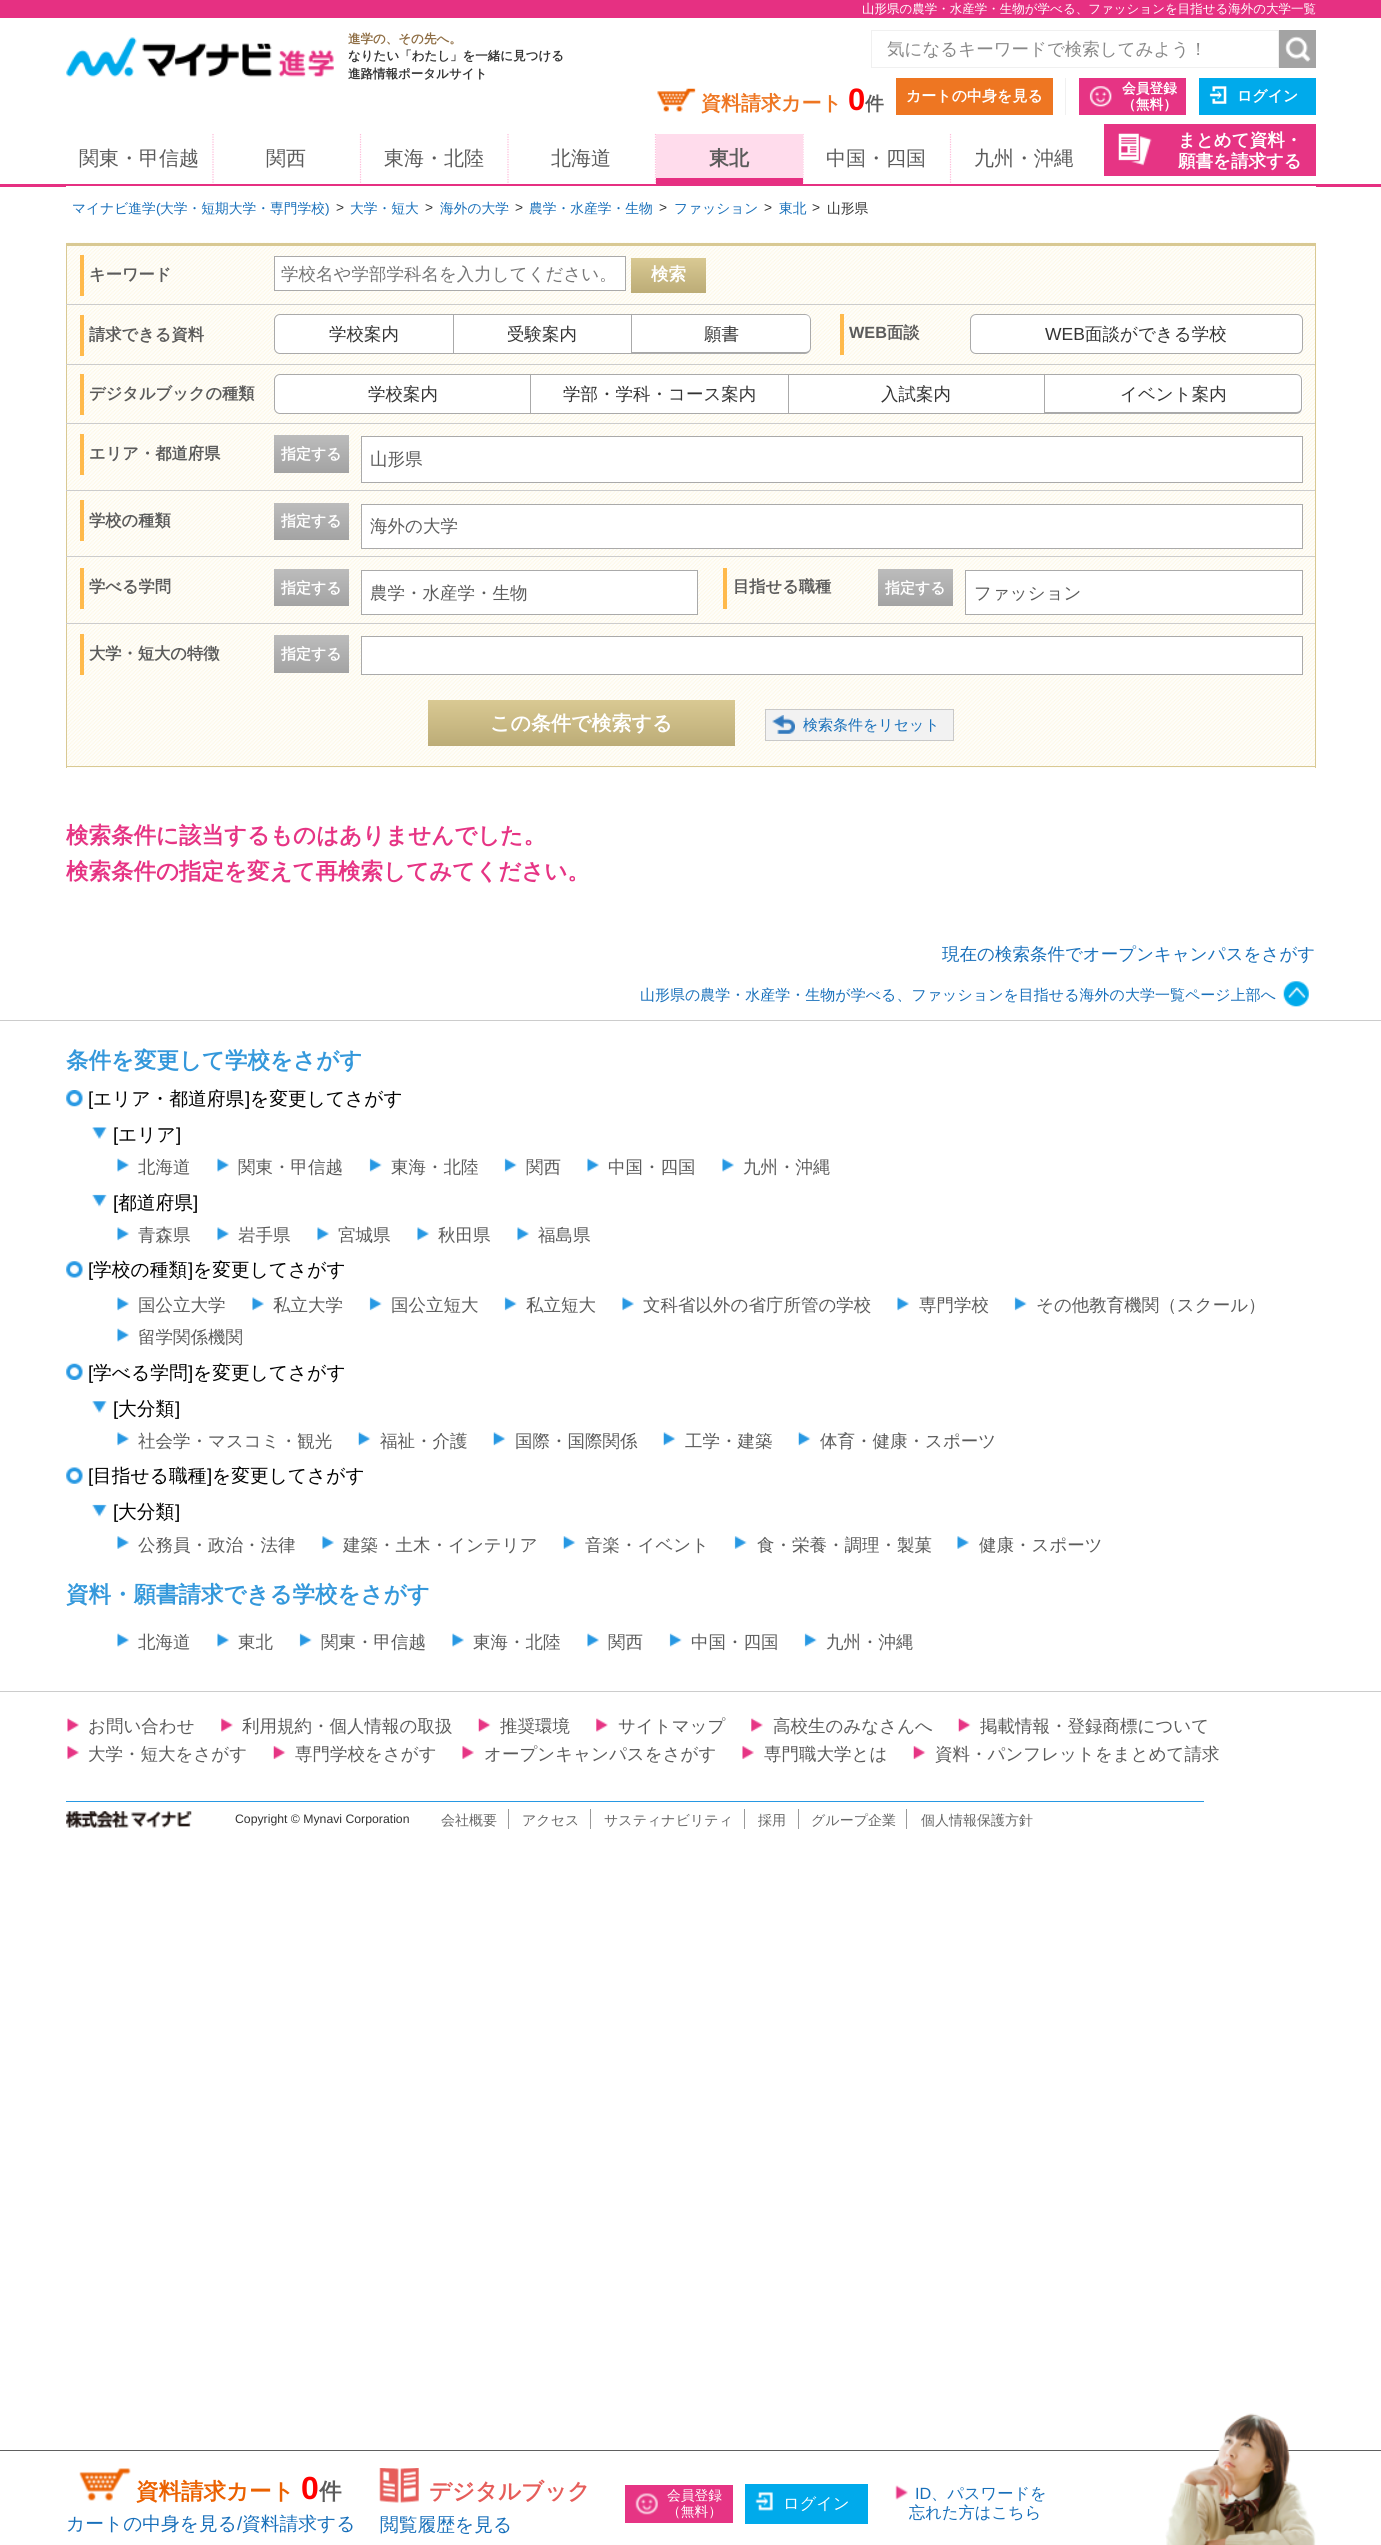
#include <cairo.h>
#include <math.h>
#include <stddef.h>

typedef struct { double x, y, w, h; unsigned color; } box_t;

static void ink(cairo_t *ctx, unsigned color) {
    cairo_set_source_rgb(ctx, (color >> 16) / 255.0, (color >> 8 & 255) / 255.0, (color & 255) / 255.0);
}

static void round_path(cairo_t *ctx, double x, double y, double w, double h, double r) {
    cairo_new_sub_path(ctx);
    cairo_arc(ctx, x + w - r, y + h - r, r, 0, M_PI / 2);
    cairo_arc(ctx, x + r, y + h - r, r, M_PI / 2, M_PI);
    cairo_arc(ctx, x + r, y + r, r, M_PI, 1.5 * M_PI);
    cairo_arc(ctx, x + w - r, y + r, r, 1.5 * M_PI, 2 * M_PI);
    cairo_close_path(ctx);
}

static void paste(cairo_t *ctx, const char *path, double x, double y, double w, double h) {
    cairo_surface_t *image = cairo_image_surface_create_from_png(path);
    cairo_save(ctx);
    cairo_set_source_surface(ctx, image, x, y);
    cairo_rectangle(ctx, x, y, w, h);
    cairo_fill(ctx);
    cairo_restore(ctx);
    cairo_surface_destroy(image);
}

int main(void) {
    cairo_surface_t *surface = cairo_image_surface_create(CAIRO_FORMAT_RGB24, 1381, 2545);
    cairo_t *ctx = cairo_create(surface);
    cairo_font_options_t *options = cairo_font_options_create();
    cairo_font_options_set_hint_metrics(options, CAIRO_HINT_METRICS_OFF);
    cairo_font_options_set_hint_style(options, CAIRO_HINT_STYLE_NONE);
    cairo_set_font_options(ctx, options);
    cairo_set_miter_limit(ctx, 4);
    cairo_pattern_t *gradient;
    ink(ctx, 0xFFFFFF);
    cairo_paint(ctx);
    ink(ctx, 0xE63082);
    cairo_rectangle(ctx, 0, 0, 1381, 18);
    cairo_fill(ctx);
    cairo_select_font_face(ctx, "WenQuanYi Zen Hei Medium", CAIRO_FONT_SLANT_NORMAL, CAIRO_FONT_WEIGHT_NORMAL);
    cairo_set_font_size(ctx, 12.5);
    ink(ctx, 0xFFFFFF);
    cairo_move_to(ctx, 862, 13);
    cairo_show_text(ctx, "山形県の農学・水産学・生物が学べる、ファッションを目指せる海外の大学一覧");
    paste(ctx, "media/1.png", 66, 37, 268, 40);
    cairo_select_font_face(ctx, "WenQuanYi Zen Hei", CAIRO_FONT_SLANT_NORMAL, CAIRO_FONT_WEIGHT_BOLD);
    ink(ctx, 0x8E6D43);
    cairo_move_to(ctx, 348, 43);
    cairo_show_text(ctx, "進学の、その先へ。");
    ink(ctx, 0x333333);
    cairo_move_to(ctx, 348, 60);
    cairo_show_text(ctx, "なりたい「わたし」を一緒に見つける");
    cairo_move_to(ctx, 348, 78);
    cairo_show_text(ctx, "進路情報ポータルサイト");
    cairo_rectangle(ctx, 871.5, 30.5, 407, 37);
    ink(ctx, 0xF0F0F0);
    cairo_set_line_width(ctx, 1);
    cairo_stroke(ctx);
    cairo_select_font_face(ctx, "WenQuanYi Zen Hei Medium", CAIRO_FONT_SLANT_NORMAL, CAIRO_FONT_WEIGHT_NORMAL);
    cairo_set_font_size(ctx, 17.5);
    ink(ctx, 0x888888);
    cairo_move_to(ctx, 887, 55);
    cairo_show_text(ctx, "気になるキーワードで検索してみよう！");
    ink(ctx, 0xA3A3A3);
    cairo_rectangle(ctx, 1279, 30, 37, 38);
    cairo_fill(ctx);
    paste(ctx, "media/2.png", 1285, 36, 26, 26);
    paste(ctx, "media/3.png", 657, 88, 39, 24);
    cairo_select_font_face(ctx, "WenQuanYi Zen Hei", CAIRO_FONT_SLANT_NORMAL, CAIRO_FONT_WEIGHT_BOLD);
    cairo_set_font_size(ctx, 20);
    ink(ctx, 0xEE7622);
    cairo_move_to(ctx, 701, 110);
    cairo_show_text(ctx, "資料請求カート");
    cairo_select_font_face(ctx, "Liberation Sans", CAIRO_FONT_SLANT_NORMAL, CAIRO_FONT_WEIGHT_BOLD);
    cairo_set_font_size(ctx, 31);
    ink(ctx, 0xFF0000);
    cairo_move_to(ctx, 848, 110);
    cairo_show_text(ctx, "0");
    cairo_select_font_face(ctx, "WenQuanYi Zen Hei", CAIRO_FONT_SLANT_NORMAL, CAIRO_FONT_WEIGHT_BOLD);
    cairo_set_font_size(ctx, 18.75);
    ink(ctx, 0x5B5B5B);
    cairo_move_to(ctx, 865, 110);
    cairo_show_text(ctx, "件");
    ink(ctx, 0xEE7622);
    cairo_rectangle(ctx, 896, 78, 157, 37);
    cairo_fill(ctx);
    cairo_set_font_size(ctx, 15);
    ink(ctx, 0xFFFFFF);
    cairo_move_to(ctx, 906, 101);
    cairo_show_text(ctx, "カートの中身を見る");
    ink(ctx, 0xF0F0F0);
    cairo_rectangle(ctx, 1065, 78, 1, 37);
    cairo_fill(ctx);
    ink(ctx, 0xE63484);
    cairo_rectangle(ctx, 1079, 78, 107, 37);
    cairo_fill(ctx);
    paste(ctx, "media/4.png", 1089, 86, 23, 21);
    cairo_set_font_size(ctx, 13.75);
    ink(ctx, 0xFFFFFF);
    cairo_move_to(ctx, 1122, 93);
    cairo_show_text(ctx, "会員登録");
    cairo_move_to(ctx, 1122, 109);
    cairo_show_text(ctx, "（無料）");
    ink(ctx, 0x00AAEB);
    cairo_rectangle(ctx, 1199, 78, 117, 37);
    cairo_fill(ctx);
    paste(ctx, "media/5.png", 1209, 86, 18, 18);
    cairo_set_font_size(ctx, 15);
    ink(ctx, 0xFFFFFF);
    cairo_move_to(ctx, 1237, 101);
    cairo_show_text(ctx, "ログイン");
    ink(ctx, 0xE63484);
    cairo_rectangle(ctx, 1104, 124, 212, 52);
    cairo_fill(ctx);
    paste(ctx, "media/6.png", 1118, 133, 34, 33);
    cairo_set_font_size(ctx, 17.5);
    ink(ctx, 0xFFFFFF);
    cairo_move_to(ctx, 1178, 146);
    cairo_show_text(ctx, "まとめて資料・");
    cairo_move_to(ctx, 1178, 167);
    cairo_show_text(ctx, "願書を請求する");
    ink(ctx, 0xE63082);
    cairo_rectangle(ctx, 0, 184, 1381, 3);
    cairo_fill(ctx);
    cairo_select_font_face(ctx, "WenQuanYi Zen Hei Medium", CAIRO_FONT_SLANT_NORMAL, CAIRO_FONT_WEIGHT_NORMAL);
    cairo_set_font_size(ctx, 20);
    ink(ctx, 0x5B5B5B);
    cairo_move_to(ctx, 79, 165);
    cairo_show_text(ctx, "関東・甲信越");
    cairo_new_path(ctx);
    cairo_move_to(ctx, 213, 134);
    cairo_line_to(ctx, 213, 184);
    ink(ctx, 0xFFBAD9);
    cairo_set_line_width(ctx, 1.2);
    cairo_set_dash(ctx, (double[]){1.25, 1.25}, 2, 0);
    cairo_stroke(ctx);
    ink(ctx, 0x5B5B5B);
    cairo_move_to(ctx, 266, 165);
    cairo_show_text(ctx, "関西");
    cairo_new_path(ctx);
    cairo_move_to(ctx, 360.5, 134);
    cairo_line_to(ctx, 360.5, 184);
    ink(ctx, 0xFFBAD9);
    cairo_stroke(ctx);
    ink(ctx, 0x5B5B5B);
    cairo_move_to(ctx, 384, 165);
    cairo_show_text(ctx, "東海・北陸");
    cairo_new_path(ctx);
    cairo_move_to(ctx, 508, 134);
    cairo_line_to(ctx, 508, 184);
    ink(ctx, 0xFFBAD9);
    cairo_stroke(ctx);
    ink(ctx, 0x5B5B5B);
    cairo_move_to(ctx, 551, 165);
    cairo_show_text(ctx, "北海道");
    cairo_new_path(ctx);
    cairo_move_to(ctx, 655.5, 134);
    cairo_line_to(ctx, 655.5, 184);
    ink(ctx, 0xFFBAD9);
    cairo_stroke(ctx);
    cairo_new_path(ctx);
    cairo_move_to(ctx, 803, 134);
    cairo_line_to(ctx, 803, 184);
    cairo_stroke(ctx);
    ink(ctx, 0xFFDCEC);
    cairo_rectangle(ctx, 656, 134, 147, 44);
    cairo_fill(ctx);
    cairo_select_font_face(ctx, "WenQuanYi Zen Hei", CAIRO_FONT_SLANT_NORMAL, CAIRO_FONT_WEIGHT_BOLD);
    ink(ctx, 0x5B5B5B);
    cairo_move_to(ctx, 709, 165);
    cairo_show_text(ctx, "東北");
    ink(ctx, 0xE63082);
    cairo_rectangle(ctx, 656, 178, 147, 6);
    cairo_fill(ctx);
    cairo_select_font_face(ctx, "WenQuanYi Zen Hei Medium", CAIRO_FONT_SLANT_NORMAL, CAIRO_FONT_WEIGHT_NORMAL);
    ink(ctx, 0x5B5B5B);
    cairo_move_to(ctx, 826, 165);
    cairo_show_text(ctx, "中国・四国");
    cairo_new_path(ctx);
    cairo_move_to(ctx, 950.5, 134);
    cairo_line_to(ctx, 950.5, 184);
    ink(ctx, 0xFFBAD9);
    cairo_stroke(ctx);
    ink(ctx, 0x5B5B5B);
    cairo_move_to(ctx, 974, 165);
    cairo_show_text(ctx, "九州・沖縄");
    ink(ctx, 0xFFFFFF);
    cairo_rectangle(ctx, 66, 186, 1250, 1);
    cairo_fill(ctx);
    cairo_set_font_size(ctx, 13.75);
    ink(ctx, 0x176FBA);
    cairo_move_to(ctx, 72, 213);
    cairo_show_text(ctx, "マイナビ進学");
    cairo_select_font_face(ctx, "Liberation Sans", CAIRO_FONT_SLANT_NORMAL, CAIRO_FONT_WEIGHT_NORMAL);
    cairo_move_to(ctx, 156, 213);
    cairo_show_text(ctx, "(");
    cairo_select_font_face(ctx, "WenQuanYi Zen Hei Medium", CAIRO_FONT_SLANT_NORMAL, CAIRO_FONT_WEIGHT_NORMAL);
    cairo_move_to(ctx, 160, 213);
    cairo_show_text(ctx, "大学・短期大学・専門学校");
    cairo_select_font_face(ctx, "Liberation Sans", CAIRO_FONT_SLANT_NORMAL, CAIRO_FONT_WEIGHT_NORMAL);
    cairo_move_to(ctx, 325, 213);
    cairo_show_text(ctx, ")");
    ink(ctx, 0x333333);
    cairo_move_to(ctx, 336, 212);
    cairo_show_text(ctx, ">");
    cairo_select_font_face(ctx, "WenQuanYi Zen Hei Medium", CAIRO_FONT_SLANT_NORMAL, CAIRO_FONT_WEIGHT_NORMAL);
    ink(ctx, 0x176FBA);
    cairo_move_to(ctx, 350, 213);
    cairo_show_text(ctx, "大学・短大");
    cairo_select_font_face(ctx, "Liberation Sans", CAIRO_FONT_SLANT_NORMAL, CAIRO_FONT_WEIGHT_NORMAL);
    ink(ctx, 0x333333);
    cairo_move_to(ctx, 425, 212);
    cairo_show_text(ctx, ">");
    cairo_select_font_face(ctx, "WenQuanYi Zen Hei Medium", CAIRO_FONT_SLANT_NORMAL, CAIRO_FONT_WEIGHT_NORMAL);
    ink(ctx, 0x176FBA);
    cairo_move_to(ctx, 440, 213);
    cairo_show_text(ctx, "海外の大学");
    cairo_select_font_face(ctx, "Liberation Sans", CAIRO_FONT_SLANT_NORMAL, CAIRO_FONT_WEIGHT_NORMAL);
    ink(ctx, 0x333333);
    cairo_move_to(ctx, 515, 212);
    cairo_show_text(ctx, ">");
    cairo_select_font_face(ctx, "WenQuanYi Zen Hei Medium", CAIRO_FONT_SLANT_NORMAL, CAIRO_FONT_WEIGHT_NORMAL);
    ink(ctx, 0x176FBA);
    cairo_move_to(ctx, 529, 213);
    cairo_show_text(ctx, "農学・水産学・生物");
    cairo_select_font_face(ctx, "Liberation Sans", CAIRO_FONT_SLANT_NORMAL, CAIRO_FONT_WEIGHT_NORMAL);
    ink(ctx, 0x333333);
    cairo_move_to(ctx, 659, 212);
    cairo_show_text(ctx, ">");
    cairo_select_font_face(ctx, "WenQuanYi Zen Hei Medium", CAIRO_FONT_SLANT_NORMAL, CAIRO_FONT_WEIGHT_NORMAL);
    ink(ctx, 0x176FBA);
    cairo_move_to(ctx, 674, 213);
    cairo_show_text(ctx, "ファッション");
    cairo_select_font_face(ctx, "Liberation Sans", CAIRO_FONT_SLANT_NORMAL, CAIRO_FONT_WEIGHT_NORMAL);
    ink(ctx, 0x333333);
    cairo_move_to(ctx, 764, 212);
    cairo_show_text(ctx, ">");
    cairo_select_font_face(ctx, "WenQuanYi Zen Hei Medium", CAIRO_FONT_SLANT_NORMAL, CAIRO_FONT_WEIGHT_NORMAL);
    ink(ctx, 0x176FBA);
    cairo_move_to(ctx, 779, 213);
    cairo_show_text(ctx, "東北");
    cairo_select_font_face(ctx, "Liberation Sans", CAIRO_FONT_SLANT_NORMAL, CAIRO_FONT_WEIGHT_NORMAL);
    ink(ctx, 0x333333);
    cairo_move_to(ctx, 812, 212);
    cairo_show_text(ctx, ">");
    cairo_select_font_face(ctx, "WenQuanYi Zen Hei Medium", CAIRO_FONT_SLANT_NORMAL, CAIRO_FONT_WEIGHT_NORMAL);
    cairo_move_to(ctx, 827, 213);
    cairo_show_text(ctx, "山形県");
    paste(ctx, "media/7.png", 66, 242, 1251, 526);
    {
        static const box_t items[] = {
            {66, 243, 1250, 3, 0xD9C993},
            {1315, 243, 1, 525, 0xD9C993},
            {66, 766, 1250, 1, 0xD9C993},
            {66, 243, 1, 525, 0xD9C993},
            {80, 255, 4, 41, 0xFFBA4C},
        };
        for (size_t i = 0; i < sizeof items / sizeof *items; i++) {
            ink(ctx, items[i].color);
            cairo_rectangle(ctx, items[i].x, items[i].y, items[i].w, items[i].h);
            cairo_fill(ctx);
        }
    }
    cairo_select_font_face(ctx, "WenQuanYi Zen Hei", CAIRO_FONT_SLANT_NORMAL, CAIRO_FONT_WEIGHT_BOLD);
    cairo_set_font_size(ctx, 16.25);
    ink(ctx, 0x5B5B5B);
    cairo_move_to(ctx, 89, 280);
    cairo_show_text(ctx, "キーワード");
    ink(ctx, 0xFFFFFF);
    cairo_rectangle(ctx, 274.5, 256.5, 351, 34);
    cairo_fill_preserve(ctx);
    ink(ctx, 0xAAAAAA);
    cairo_set_line_width(ctx, 1);
    cairo_set_dash(ctx, NULL, 0, 0);
    cairo_stroke(ctx);
    cairo_select_font_face(ctx, "WenQuanYi Zen Hei Medium", CAIRO_FONT_SLANT_NORMAL, CAIRO_FONT_WEIGHT_NORMAL);
    cairo_set_font_size(ctx, 17.5);
    ink(ctx, 0x757575);
    cairo_move_to(ctx, 281, 280);
    cairo_show_text(ctx, "学校名や学部学科名を入力してください。");
    gradient = cairo_pattern_create_linear(669, 258, 669, 293);
    cairo_pattern_add_color_stop_rgba(gradient, 0, 0.851, 0.788, 0.576, 1);
    cairo_pattern_add_color_stop_rgba(gradient, 1, 0.737, 0.675, 0.467, 1);
    cairo_set_source(ctx, gradient);
    cairo_pattern_destroy(gradient);
    cairo_rectangle(ctx, 631, 258, 75, 35);
    cairo_fill(ctx);
    cairo_select_font_face(ctx, "WenQuanYi Zen Hei", CAIRO_FONT_SLANT_NORMAL, CAIRO_FONT_WEIGHT_BOLD);
    ink(ctx, 0xFFFFFF);
    cairo_move_to(ctx, 651, 280);
    cairo_show_text(ctx, "検索");
    ink(ctx, 0xFFBA4C);
    cairo_rectangle(ctx, 80, 315, 4, 41);
    cairo_fill(ctx);
    cairo_set_font_size(ctx, 16.25);
    ink(ctx, 0x5B5B5B);
    cairo_move_to(ctx, 89, 340);
    cairo_show_text(ctx, "請求できる資料");
    ink(ctx, 0xCCCCCC);
    cairo_rectangle(ctx, 66, 304, 1249, 1);
    cairo_fill(ctx);
    ink(ctx, 0xFFFFFF);
    cairo_new_path(ctx);
    cairo_move_to(ctx, 280, 314.5);
    cairo_line_to(ctx, 453.5, 314.5);
    cairo_line_to(ctx, 453.5, 353.5);
    cairo_line_to(ctx, 280, 353.5);
    cairo_curve_to(ctx, 277, 353.5, 274.5, 351, 274.5, 348);
    cairo_line_to(ctx, 274.5, 320);
    cairo_curve_to(ctx, 274.5, 317, 277, 314.5, 280, 314.5);
    cairo_close_path(ctx);
    cairo_fill_preserve(ctx);
    ink(ctx, 0xAAAAAA);
    cairo_stroke(ctx);
    cairo_select_font_face(ctx, "WenQuanYi Zen Hei Medium", CAIRO_FONT_SLANT_NORMAL, CAIRO_FONT_WEIGHT_NORMAL);
    cairo_set_font_size(ctx, 17.5);
    ink(ctx, 0x333333);
    cairo_move_to(ctx, 329, 340);
    cairo_show_text(ctx, "学校案内");
    {
        static const box_t items[] = {
            {454, 315, 179, 38, 0xFFFFFF},
            {454, 314, 179, 1, 0xAAAAAA},
            {631, 314, 1, 40, 0xAAAAAA},
            {454, 353, 179, 1, 0xAAAAAA},
        };
        for (size_t i = 0; i < sizeof items / sizeof *items; i++) {
            ink(ctx, items[i].color);
            cairo_rectangle(ctx, items[i].x, items[i].y, items[i].w, items[i].h);
            cairo_fill(ctx);
        }
    }
    ink(ctx, 0x333333);
    cairo_move_to(ctx, 507, 340);
    cairo_show_text(ctx, "受験案内");
    ink(ctx, 0xFFFFFF);
    cairo_new_path(ctx);
    cairo_move_to(ctx, 633, 314);
    cairo_line_to(ctx, 805, 314);
    cairo_curve_to(ctx, 808.5, 314, 811, 316.5, 811, 320);
    cairo_line_to(ctx, 811, 348);
    cairo_curve_to(ctx, 811, 351.5, 808.5, 354, 805, 354);
    cairo_line_to(ctx, 633, 354);
    cairo_close_path(ctx);
    cairo_fill(ctx);
    ink(ctx, 0xAAAAAA);
    cairo_set_fill_rule(ctx, CAIRO_FILL_RULE_EVEN_ODD);
    cairo_new_path(ctx);
    cairo_move_to(ctx, 632, 314);
    cairo_line_to(ctx, 805, 314);
    cairo_curve_to(ctx, 808, 314, 811, 317, 811, 320);
    cairo_line_to(ctx, 811, 348);
    cairo_curve_to(ctx, 811, 351, 808, 354, 805, 354);
    cairo_line_to(ctx, 632, 354);
    cairo_close_path(ctx);
    cairo_move_to(ctx, 632, 315);
    cairo_line_to(ctx, 805, 315);
    cairo_curve_to(ctx, 808, 315, 810, 317, 810, 320);
    cairo_line_to(ctx, 810, 348);
    cairo_curve_to(ctx, 810, 350, 808, 352, 805, 352);
    cairo_line_to(ctx, 632, 352);
    cairo_close_path(ctx);
    cairo_fill(ctx);
    ink(ctx, 0x333333);
    cairo_move_to(ctx, 704, 340);
    cairo_show_text(ctx, "願書");
    ink(ctx, 0xFFBA4C);
    cairo_rectangle(ctx, 840, 314, 4, 41);
    cairo_fill(ctx);
    cairo_select_font_face(ctx, "Liberation Sans", CAIRO_FONT_SLANT_NORMAL, CAIRO_FONT_WEIGHT_BOLD);
    cairo_set_font_size(ctx, 16.25);
    ink(ctx, 0x5B5B5B);
    cairo_move_to(ctx, 849, 338);
    cairo_show_text(ctx, "WEB");
    cairo_select_font_face(ctx, "WenQuanYi Zen Hei", CAIRO_FONT_SLANT_NORMAL, CAIRO_FONT_WEIGHT_BOLD);
    cairo_move_to(ctx, 887, 338);
    cairo_show_text(ctx, "面談");
    ink(ctx, 0xFFFFFF);
    round_path(ctx, 970.5, 314.5, 332, 39, 5.5);
    cairo_fill_preserve(ctx);
    ink(ctx, 0xAAAAAA);
    cairo_stroke(ctx);
    cairo_select_font_face(ctx, "Liberation Sans", CAIRO_FONT_SLANT_NORMAL, CAIRO_FONT_WEIGHT_NORMAL);
    cairo_set_font_size(ctx, 17.5);
    ink(ctx, 0x333333);
    cairo_move_to(ctx, 1045, 340);
    cairo_show_text(ctx, "WEB");
    cairo_select_font_face(ctx, "WenQuanYi Zen Hei Medium", CAIRO_FONT_SLANT_NORMAL, CAIRO_FONT_WEIGHT_NORMAL);
    cairo_move_to(ctx, 1085, 340);
    cairo_show_text(ctx, "面談ができる学校");
    ink(ctx, 0xFFBA4C);
    cairo_rectangle(ctx, 80, 374, 4, 41);
    cairo_fill(ctx);
    cairo_select_font_face(ctx, "WenQuanYi Zen Hei", CAIRO_FONT_SLANT_NORMAL, CAIRO_FONT_WEIGHT_BOLD);
    cairo_set_font_size(ctx, 16.25);
    ink(ctx, 0x5B5B5B);
    cairo_move_to(ctx, 89, 399);
    cairo_show_text(ctx, "デジタルブックの種類");
    ink(ctx, 0xCCCCCC);
    cairo_rectangle(ctx, 66, 364, 1249, 1);
    cairo_fill(ctx);
    ink(ctx, 0xFFFFFF);
    cairo_new_path(ctx);
    cairo_move_to(ctx, 280, 374.5);
    cairo_line_to(ctx, 530.5, 374.5);
    cairo_line_to(ctx, 530.5, 413.5);
    cairo_line_to(ctx, 280, 413.5);
    cairo_curve_to(ctx, 277, 413.5, 274.5, 411, 274.5, 408);
    cairo_line_to(ctx, 274.5, 380);
    cairo_curve_to(ctx, 274.5, 377, 277, 374.5, 280, 374.5);
    cairo_close_path(ctx);
    cairo_fill_preserve(ctx);
    ink(ctx, 0xAAAAAA);
    cairo_stroke(ctx);
    cairo_select_font_face(ctx, "WenQuanYi Zen Hei Medium", CAIRO_FONT_SLANT_NORMAL, CAIRO_FONT_WEIGHT_NORMAL);
    cairo_set_font_size(ctx, 17.5);
    ink(ctx, 0x333333);
    cairo_move_to(ctx, 368, 400);
    cairo_show_text(ctx, "学校案内");
    {
        static const box_t items[] = {
            {531, 375, 257, 38, 0xFFFFFF},
            {531, 374, 514, 1, 0xAAAAAA},
            {788, 374, 1, 40, 0xAAAAAA},
            {531, 413, 258, 1, 0xAAAAAA},
        };
        for (size_t i = 0; i < sizeof items / sizeof *items; i++) {
            ink(ctx, items[i].color);
            cairo_rectangle(ctx, items[i].x, items[i].y, items[i].w, items[i].h);
            cairo_fill(ctx);
        }
    }
    ink(ctx, 0x333333);
    cairo_move_to(ctx, 563, 400);
    cairo_show_text(ctx, "学部・学科・コース案内");
    {
        static const box_t items[] = {
            {789, 375, 255, 38, 0xFFFFFF},
            {1044, 374, 1, 40, 0xAAAAAA},
            {789, 413, 256, 1, 0xAAAAAA},
        };
        for (size_t i = 0; i < sizeof items / sizeof *items; i++) {
            ink(ctx, items[i].color);
            cairo_rectangle(ctx, items[i].x, items[i].y, items[i].w, items[i].h);
            cairo_fill(ctx);
        }
    }
    ink(ctx, 0x333333);
    cairo_move_to(ctx, 881, 400);
    cairo_show_text(ctx, "入試案内");
    ink(ctx, 0xFFFFFF);
    cairo_new_path(ctx);
    cairo_move_to(ctx, 1045, 374);
    cairo_line_to(ctx, 1297, 374);
    cairo_curve_to(ctx, 1300.5, 374, 1303, 376.5, 1303, 380);
    cairo_line_to(ctx, 1303, 408);
    cairo_curve_to(ctx, 1303, 411.5, 1300.5, 414, 1297, 414);
    cairo_line_to(ctx, 1045, 414);
    cairo_close_path(ctx);
    cairo_fill(ctx);
    ink(ctx, 0xAAAAAA);
    cairo_new_path(ctx);
    cairo_move_to(ctx, 1045, 374);
    cairo_line_to(ctx, 1296, 374);
    cairo_curve_to(ctx, 1300, 374, 1302, 377, 1302, 380);
    cairo_line_to(ctx, 1302, 408);
    cairo_curve_to(ctx, 1302, 411, 1300, 414, 1296, 414);
    cairo_line_to(ctx, 1045, 414);
    cairo_close_path(ctx);
    cairo_move_to(ctx, 1045, 375);
    cairo_line_to(ctx, 1296, 375);
    cairo_curve_to(ctx, 1299, 375, 1301, 377, 1301, 380);
    cairo_line_to(ctx, 1301, 408);
    cairo_curve_to(ctx, 1301, 410, 1299, 412, 1296, 412);
    cairo_line_to(ctx, 1045, 412);
    cairo_close_path(ctx);
    cairo_fill(ctx);
    ink(ctx, 0x333333);
    cairo_move_to(ctx, 1120, 400);
    cairo_show_text(ctx, "イベント案内");
    ink(ctx, 0xFFBA4C);
    cairo_rectangle(ctx, 80, 434, 4, 41);
    cairo_fill(ctx);
    cairo_select_font_face(ctx, "WenQuanYi Zen Hei", CAIRO_FONT_SLANT_NORMAL, CAIRO_FONT_WEIGHT_BOLD);
    cairo_set_font_size(ctx, 16.25);
    ink(ctx, 0x5B5B5B);
    cairo_move_to(ctx, 89, 459);
    cairo_show_text(ctx, "エリア・都道府県");
    ink(ctx, 0xCCCCCC);
    cairo_rectangle(ctx, 66, 423, 1249, 1);
    cairo_fill(ctx);
    gradient = cairo_pattern_create_linear(311, 435, 311, 473);
    cairo_pattern_add_color_stop_rgba(gradient, 0, 0.737, 0.737, 0.737, 1);
    cairo_pattern_add_color_stop_rgba(gradient, 1, 0.639, 0.639, 0.639, 1);
    cairo_set_source(ctx, gradient);
    cairo_pattern_destroy(gradient);
    cairo_rectangle(ctx, 274, 435, 75, 38);
    cairo_fill(ctx);
    cairo_set_font_size(ctx, 15);
    ink(ctx, 0xFFFFFF);
    cairo_move_to(ctx, 281, 459);
    cairo_show_text(ctx, "指定する");
    cairo_rectangle(ctx, 361.5, 436.5, 941, 46);
    cairo_fill_preserve(ctx);
    ink(ctx, 0xAAAAAA);
    cairo_stroke(ctx);
    cairo_select_font_face(ctx, "WenQuanYi Zen Hei Medium", CAIRO_FONT_SLANT_NORMAL, CAIRO_FONT_WEIGHT_NORMAL);
    cairo_set_font_size(ctx, 17.5);
    ink(ctx, 0x5B5B5B);
    cairo_move_to(ctx, 370, 465);
    cairo_show_text(ctx, "山形県");
    ink(ctx, 0xFFBA4C);
    cairo_rectangle(ctx, 80, 500, 4, 41);
    cairo_fill(ctx);
    cairo_select_font_face(ctx, "WenQuanYi Zen Hei", CAIRO_FONT_SLANT_NORMAL, CAIRO_FONT_WEIGHT_BOLD);
    cairo_set_font_size(ctx, 16.25);
    ink(ctx, 0x5B5B5B);
    cairo_move_to(ctx, 89, 526);
    cairo_show_text(ctx, "学校の種類");
    ink(ctx, 0xCCCCCC);
    cairo_rectangle(ctx, 66, 490, 1249, 1);
    cairo_fill(ctx);
    gradient = cairo_pattern_create_linear(311, 503, 311, 540);
    cairo_pattern_add_color_stop_rgba(gradient, 0, 0.737, 0.737, 0.737, 1);
    cairo_pattern_add_color_stop_rgba(gradient, 1, 0.639, 0.639, 0.639, 1);
    cairo_set_source(ctx, gradient);
    cairo_pattern_destroy(gradient);
    cairo_rectangle(ctx, 274, 503, 75, 37);
    cairo_fill(ctx);
    cairo_set_font_size(ctx, 15);
    ink(ctx, 0xFFFFFF);
    cairo_move_to(ctx, 281, 526);
    cairo_show_text(ctx, "指定する");
    cairo_rectangle(ctx, 361.5, 504.5, 941, 44);
    cairo_fill_preserve(ctx);
    ink(ctx, 0xAAAAAA);
    cairo_stroke(ctx);
    cairo_select_font_face(ctx, "WenQuanYi Zen Hei Medium", CAIRO_FONT_SLANT_NORMAL, CAIRO_FONT_WEIGHT_NORMAL);
    cairo_set_font_size(ctx, 17.5);
    ink(ctx, 0x5B5B5B);
    cairo_move_to(ctx, 370, 532);
    cairo_show_text(ctx, "海外の大学");
    ink(ctx, 0xFFBA4C);
    cairo_rectangle(ctx, 80, 568, 4, 41);
    cairo_fill(ctx);
    cairo_select_font_face(ctx, "WenQuanYi Zen Hei", CAIRO_FONT_SLANT_NORMAL, CAIRO_FONT_WEIGHT_BOLD);
    cairo_set_font_size(ctx, 16.25);
    ink(ctx, 0x5B5B5B);
    cairo_move_to(ctx, 89, 592);
    cairo_show_text(ctx, "学べる学問");
    gradient = cairo_pattern_create_linear(311, 569, 311, 606);
    cairo_pattern_add_color_stop_rgba(gradient, 0, 0.737, 0.737, 0.737, 1);
    cairo_pattern_add_color_stop_rgba(gradient, 1, 0.639, 0.639, 0.639, 1);
    cairo_set_source(ctx, gradient);
    cairo_pattern_destroy(gradient);
    cairo_rectangle(ctx, 274, 569, 75, 37);
    cairo_fill(ctx);
    cairo_set_font_size(ctx, 15);
    ink(ctx, 0xFFFFFF);
    cairo_move_to(ctx, 281, 593);
    cairo_show_text(ctx, "指定する");
    cairo_rectangle(ctx, 361.5, 570.5, 336, 44);
    cairo_fill_preserve(ctx);
    ink(ctx, 0xAAAAAA);
    cairo_stroke(ctx);
    cairo_select_font_face(ctx, "WenQuanYi Zen Hei Medium", CAIRO_FONT_SLANT_NORMAL, CAIRO_FONT_WEIGHT_NORMAL);
    cairo_set_font_size(ctx, 17.5);
    ink(ctx, 0x5B5B5B);
    cairo_move_to(ctx, 370, 599);
    cairo_show_text(ctx, "農学・水産学・生物");
    ink(ctx, 0xFFBA4C);
    cairo_rectangle(ctx, 723, 568, 4, 41);
    cairo_fill(ctx);
    cairo_select_font_face(ctx, "WenQuanYi Zen Hei", CAIRO_FONT_SLANT_NORMAL, CAIRO_FONT_WEIGHT_BOLD);
    cairo_set_font_size(ctx, 16.25);
    ink(ctx, 0x5B5B5B);
    cairo_move_to(ctx, 733, 592);
    cairo_show_text(ctx, "目指せる職種");
    ink(ctx, 0xCCCCCC);
    cairo_rectangle(ctx, 66, 556, 1249, 1);
    cairo_fill(ctx);
    gradient = cairo_pattern_create_linear(915, 569, 915, 606);
    cairo_pattern_add_color_stop_rgba(gradient, 0, 0.737, 0.737, 0.737, 1);
    cairo_pattern_add_color_stop_rgba(gradient, 1, 0.639, 0.639, 0.639, 1);
    cairo_set_source(ctx, gradient);
    cairo_pattern_destroy(gradient);
    cairo_rectangle(ctx, 878, 569, 75, 37);
    cairo_fill(ctx);
    cairo_set_font_size(ctx, 15);
    ink(ctx, 0xFFFFFF);
    cairo_move_to(ctx, 885, 593);
    cairo_show_text(ctx, "指定する");
    cairo_rectangle(ctx, 965.5, 570.5, 337, 44);
    cairo_fill_preserve(ctx);
    ink(ctx, 0xAAAAAA);
    cairo_stroke(ctx);
    cairo_select_font_face(ctx, "WenQuanYi Zen Hei Medium", CAIRO_FONT_SLANT_NORMAL, CAIRO_FONT_WEIGHT_NORMAL);
    cairo_set_font_size(ctx, 17.5);
    ink(ctx, 0x5B5B5B);
    cairo_move_to(ctx, 974, 599);
    cairo_show_text(ctx, "ファッション");
    ink(ctx, 0xFFBA4C);
    cairo_rectangle(ctx, 80, 634, 4, 41);
    cairo_fill(ctx);
    cairo_select_font_face(ctx, "WenQuanYi Zen Hei", CAIRO_FONT_SLANT_NORMAL, CAIRO_FONT_WEIGHT_BOLD);
    cairo_set_font_size(ctx, 16.25);
    ink(ctx, 0x5B5B5B);
    cairo_move_to(ctx, 89, 659);
    cairo_show_text(ctx, "大学・短大の特徴");
    ink(ctx, 0xCCCCCC);
    cairo_rectangle(ctx, 66, 623, 1249, 1);
    cairo_fill(ctx);
    gradient = cairo_pattern_create_linear(311, 635, 311, 673);
    cairo_pattern_add_color_stop_rgba(gradient, 0, 0.737, 0.737, 0.737, 1);
    cairo_pattern_add_color_stop_rgba(gradient, 1, 0.639, 0.639, 0.639, 1);
    cairo_set_source(ctx, gradient);
    cairo_pattern_destroy(gradient);
    cairo_rectangle(ctx, 274, 635, 75, 38);
    cairo_fill(ctx);
    cairo_set_font_size(ctx, 15);
    ink(ctx, 0xFFFFFF);
    cairo_move_to(ctx, 281, 659);
    cairo_show_text(ctx, "指定する");
    cairo_rectangle(ctx, 361.5, 636.5, 941, 38);
    cairo_fill_preserve(ctx);
    ink(ctx, 0xAAAAAA);
    cairo_stroke(ctx);
    gradient = cairo_pattern_create_linear(581, 700, 581, 746);
    cairo_pattern_add_color_stop_rgba(gradient, 0, 0.851, 0.788, 0.576, 1);
    cairo_pattern_add_color_stop_rgba(gradient, 1, 0.737, 0.675, 0.467, 1);
    cairo_set_source(ctx, gradient);
    cairo_pattern_destroy(gradient);
    cairo_rectangle(ctx, 428, 700, 307, 46);
    cairo_fill(ctx);
    cairo_set_font_size(ctx, 20);
    ink(ctx, 0xFFFFFF);
    cairo_move_to(ctx, 490, 730);
    cairo_show_text(ctx, "この条件で検索する");
    ink(ctx, 0xF2F2F2);
    cairo_rectangle(ctx, 766, 710, 187, 30);
    cairo_fill(ctx);
    paste(ctx, "media/8.png", 772, 715, 23, 19);
    cairo_rectangle(ctx, 765.5, 709.5, 188, 31);
    ink(ctx, 0xC9C9C9);
    cairo_stroke(ctx);
    cairo_select_font_face(ctx, "WenQuanYi Zen Hei Medium", CAIRO_FONT_SLANT_NORMAL, CAIRO_FONT_WEIGHT_NORMAL);
    cairo_set_font_size(ctx, 15);
    ink(ctx, 0x176FBA);
    cairo_move_to(ctx, 803, 730);
    cairo_show_text(ctx, "検索条件をリセット");
    cairo_select_font_face(ctx, "WenQuanYi Zen Hei", CAIRO_FONT_SLANT_NORMAL, CAIRO_FONT_WEIGHT_BOLD);
    cairo_set_font_size(ctx, 22.5);
    ink(ctx, 0xE63484);
    cairo_move_to(ctx, 66, 843);
    cairo_show_text(ctx, "検索条件に該当するものはありませんでした。");
    cairo_move_to(ctx, 66, 879);
    cairo_show_text(ctx, "検索条件の指定を変えて再検索してみてください。");
    cairo_select_font_face(ctx, "WenQuanYi Zen Hei Medium", CAIRO_FONT_SLANT_NORMAL, CAIRO_FONT_WEIGHT_NORMAL);
    cairo_set_font_size(ctx, 17.5);
    ink(ctx, 0x176FBA);
    cairo_move_to(ctx, 942, 960);
    cairo_show_text(ctx, "現在の検索条件でオープンキャンパスをさがす");
    cairo_set_font_size(ctx, 15);
    cairo_move_to(ctx, 640, 1000);
    cairo_show_text(ctx, "山形県の農学・水産学・生物が学べる、ファッションを目指せる海外の大学一覧ページ上部へ");
    paste(ctx, "media/9.png", 1283, 981, 26, 26);
    ink(ctx, 0xCCCCCC);
    cairo_rectangle(ctx, 0, 1020, 1381, 1);
    cairo_fill(ctx);
    cairo_select_font_face(ctx, "WenQuanYi Zen Hei", CAIRO_FONT_SLANT_NORMAL, CAIRO_FONT_WEIGHT_BOLD);
    cairo_set_font_size(ctx, 22.5);
    ink(ctx, 0x3498DB);
    cairo_move_to(ctx, 66, 1068);
    cairo_show_text(ctx, "条件を変更して学校をさがす");
    paste(ctx, "media/10.png", 66, 1090, 17, 17);
    cairo_select_font_face(ctx, "Liberation Sans", CAIRO_FONT_SLANT_NORMAL, CAIRO_FONT_WEIGHT_NORMAL);
    cairo_set_font_size(ctx, 18.75);
    ink(ctx, 0x000000);
    cairo_move_to(ctx, 88, 1105);
    cairo_show_text(ctx, "[");
    cairo_select_font_face(ctx, "WenQuanYi Zen Hei Medium", CAIRO_FONT_SLANT_NORMAL, CAIRO_FONT_WEIGHT_NORMAL);
    cairo_move_to(ctx, 93, 1105);
    cairo_show_text(ctx, "エリア・都道府県");
    cairo_select_font_face(ctx, "Liberation Sans", CAIRO_FONT_SLANT_NORMAL, CAIRO_FONT_WEIGHT_NORMAL);
    cairo_move_to(ctx, 245, 1105);
    cairo_show_text(ctx, "]");
    cairo_select_font_face(ctx, "WenQuanYi Zen Hei Medium", CAIRO_FONT_SLANT_NORMAL, CAIRO_FONT_WEIGHT_NORMAL);
    cairo_move_to(ctx, 250, 1105);
    cairo_show_text(ctx, "を変更してさがす");
    paste(ctx, "media/11.png", 92, 1127, 15, 12);
    cairo_select_font_face(ctx, "Liberation Sans", CAIRO_FONT_SLANT_NORMAL, CAIRO_FONT_WEIGHT_NORMAL);
    cairo_move_to(ctx, 113, 1141);
    cairo_show_text(ctx, "[");
    cairo_select_font_face(ctx, "WenQuanYi Zen Hei Medium", CAIRO_FONT_SLANT_NORMAL, CAIRO_FONT_WEIGHT_NORMAL);
    cairo_move_to(ctx, 118, 1141);
    cairo_show_text(ctx, "エリア");
    cairo_select_font_face(ctx, "Liberation Sans", CAIRO_FONT_SLANT_NORMAL, CAIRO_FONT_WEIGHT_NORMAL);
    cairo_move_to(ctx, 176, 1141);
    cairo_show_text(ctx, "]");
    paste(ctx, "media/12.png", 117, 1158, 12, 14);
    cairo_select_font_face(ctx, "WenQuanYi Zen Hei Medium", CAIRO_FONT_SLANT_NORMAL, CAIRO_FONT_WEIGHT_NORMAL);
    cairo_set_font_size(ctx, 17.5);
    ink(ctx, 0x5B5B5B);
    cairo_move_to(ctx, 138, 1173);
    cairo_show_text(ctx, "北海道");
    paste(ctx, "media/12.png", 217, 1158, 12, 14);
    cairo_move_to(ctx, 238, 1173);
    cairo_show_text(ctx, "関東・甲信越");
    paste(ctx, "media/13.png", 369, 1158, 13, 14);
    cairo_move_to(ctx, 391, 1173);
    cairo_show_text(ctx, "東海・北陸");
    paste(ctx, "media/14.png", 504, 1158, 13, 14);
    cairo_move_to(ctx, 526, 1173);
    cairo_show_text(ctx, "関西");
    paste(ctx, "media/12.png", 587, 1158, 12, 14);
    cairo_move_to(ctx, 608, 1173);
    cairo_show_text(ctx, "中国・四国");
    paste(ctx, "media/12.png", 722, 1158, 12, 14);
    cairo_move_to(ctx, 743, 1173);
    cairo_show_text(ctx, "九州・沖縄");
    paste(ctx, "media/15.png", 92, 1194, 15, 13);
    cairo_select_font_face(ctx, "Liberation Sans", CAIRO_FONT_SLANT_NORMAL, CAIRO_FONT_WEIGHT_NORMAL);
    cairo_set_font_size(ctx, 18.75);
    ink(ctx, 0x000000);
    cairo_move_to(ctx, 113, 1209);
    cairo_show_text(ctx, "[");
    cairo_select_font_face(ctx, "WenQuanYi Zen Hei Medium", CAIRO_FONT_SLANT_NORMAL, CAIRO_FONT_WEIGHT_NORMAL);
    cairo_move_to(ctx, 118, 1209);
    cairo_show_text(ctx, "都道府県");
    cairo_select_font_face(ctx, "Liberation Sans", CAIRO_FONT_SLANT_NORMAL, CAIRO_FONT_WEIGHT_NORMAL);
    cairo_move_to(ctx, 193, 1209);
    cairo_show_text(ctx, "]");
    paste(ctx, "media/16.png", 117, 1227, 12, 14);
    cairo_select_font_face(ctx, "WenQuanYi Zen Hei Medium", CAIRO_FONT_SLANT_NORMAL, CAIRO_FONT_WEIGHT_NORMAL);
    cairo_set_font_size(ctx, 17.5);
    ink(ctx, 0x5B5B5B);
    cairo_move_to(ctx, 138, 1241);
    cairo_show_text(ctx, "青森県");
    paste(ctx, "media/16.png", 217, 1227, 12, 14);
    cairo_move_to(ctx, 238, 1241);
    cairo_show_text(ctx, "岩手県");
    paste(ctx, "media/16.png", 317, 1227, 12, 14);
    cairo_move_to(ctx, 338, 1241);
    cairo_show_text(ctx, "宮城県");
    paste(ctx, "media/16.png", 417, 1227, 12, 14);
    cairo_move_to(ctx, 438, 1241);
    cairo_show_text(ctx, "秋田県");
    paste(ctx, "media/16.png", 517, 1227, 12, 14);
    cairo_move_to(ctx, 538, 1241);
    cairo_show_text(ctx, "福島県");
    paste(ctx, "media/17.png", 66, 1261, 17, 17);
    cairo_select_font_face(ctx, "Liberation Sans", CAIRO_FONT_SLANT_NORMAL, CAIRO_FONT_WEIGHT_NORMAL);
    cairo_set_font_size(ctx, 18.75);
    ink(ctx, 0x000000);
    cairo_move_to(ctx, 88, 1276);
    cairo_show_text(ctx, "[");
    cairo_select_font_face(ctx, "WenQuanYi Zen Hei Medium", CAIRO_FONT_SLANT_NORMAL, CAIRO_FONT_WEIGHT_NORMAL);
    cairo_move_to(ctx, 93, 1276);
    cairo_show_text(ctx, "学校の種類");
    cairo_select_font_face(ctx, "Liberation Sans", CAIRO_FONT_SLANT_NORMAL, CAIRO_FONT_WEIGHT_NORMAL);
    cairo_move_to(ctx, 188, 1276);
    cairo_show_text(ctx, "]");
    cairo_select_font_face(ctx, "WenQuanYi Zen Hei Medium", CAIRO_FONT_SLANT_NORMAL, CAIRO_FONT_WEIGHT_NORMAL);
    cairo_move_to(ctx, 193, 1276);
    cairo_show_text(ctx, "を変更してさがす");
    paste(ctx, "media/16.png", 117, 1297, 12, 14);
    cairo_set_font_size(ctx, 17.5);
    ink(ctx, 0x5B5B5B);
    cairo_move_to(ctx, 138, 1311);
    cairo_show_text(ctx, "国公立大学");
    paste(ctx, "media/16.png", 252, 1297, 12, 14);
    cairo_move_to(ctx, 273, 1311);
    cairo_show_text(ctx, "私立大学");
    paste(ctx, "media/18.png", 369, 1297, 13, 14);
    cairo_move_to(ctx, 391, 1311);
    cairo_show_text(ctx, "国公立短大");
    paste(ctx, "media/19.png", 504, 1297, 13, 14);
    cairo_move_to(ctx, 526, 1311);
    cairo_show_text(ctx, "私立短大");
    paste(ctx, "media/16.png", 622, 1297, 12, 14);
    cairo_move_to(ctx, 643, 1311);
    cairo_show_text(ctx, "文科省以外の省庁所管の学校");
    paste(ctx, "media/16.png", 897, 1297, 12, 14);
    cairo_move_to(ctx, 919, 1311);
    cairo_show_text(ctx, "専門学校");
    paste(ctx, "media/19.png", 1014, 1297, 13, 14);
    cairo_move_to(ctx, 1036, 1311);
    cairo_show_text(ctx, "その他教育機関（スクール）");
    paste(ctx, "media/12.png", 117, 1328, 12, 14);
    cairo_move_to(ctx, 138, 1343);
    cairo_show_text(ctx, "留学関係機関");
    paste(ctx, "media/20.png", 66, 1363, 17, 17);
    cairo_select_font_face(ctx, "Liberation Sans", CAIRO_FONT_SLANT_NORMAL, CAIRO_FONT_WEIGHT_NORMAL);
    cairo_set_font_size(ctx, 18.75);
    ink(ctx, 0x000000);
    cairo_move_to(ctx, 88, 1379);
    cairo_show_text(ctx, "[");
    cairo_select_font_face(ctx, "WenQuanYi Zen Hei Medium", CAIRO_FONT_SLANT_NORMAL, CAIRO_FONT_WEIGHT_NORMAL);
    cairo_move_to(ctx, 93, 1379);
    cairo_show_text(ctx, "学べる学問");
    cairo_select_font_face(ctx, "Liberation Sans", CAIRO_FONT_SLANT_NORMAL, CAIRO_FONT_WEIGHT_NORMAL);
    cairo_move_to(ctx, 188, 1379);
    cairo_show_text(ctx, "]");
    cairo_select_font_face(ctx, "WenQuanYi Zen Hei Medium", CAIRO_FONT_SLANT_NORMAL, CAIRO_FONT_WEIGHT_NORMAL);
    cairo_move_to(ctx, 193, 1379);
    cairo_show_text(ctx, "を変更してさがす");
    paste(ctx, "media/21.png", 92, 1401, 15, 12);
    cairo_select_font_face(ctx, "Liberation Sans", CAIRO_FONT_SLANT_NORMAL, CAIRO_FONT_WEIGHT_NORMAL);
    cairo_move_to(ctx, 113, 1415);
    cairo_show_text(ctx, "[");
    cairo_select_font_face(ctx, "WenQuanYi Zen Hei Medium", CAIRO_FONT_SLANT_NORMAL, CAIRO_FONT_WEIGHT_NORMAL);
    cairo_move_to(ctx, 118, 1415);
    cairo_show_text(ctx, "大分類");
    cairo_select_font_face(ctx, "Liberation Sans", CAIRO_FONT_SLANT_NORMAL, CAIRO_FONT_WEIGHT_NORMAL);
    cairo_move_to(ctx, 175, 1415);
    cairo_show_text(ctx, "]");
    paste(ctx, "media/16.png", 117, 1432, 12, 14);
    cairo_select_font_face(ctx, "WenQuanYi Zen Hei Medium", CAIRO_FONT_SLANT_NORMAL, CAIRO_FONT_WEIGHT_NORMAL);
    cairo_set_font_size(ctx, 17.5);
    ink(ctx, 0x5B5B5B);
    cairo_move_to(ctx, 138, 1447);
    cairo_show_text(ctx, "社会学・マスコミ・観光");
    paste(ctx, "media/22.png", 358, 1432, 13, 14);
    cairo_move_to(ctx, 380, 1447);
    cairo_show_text(ctx, "福祉・介護");
    paste(ctx, "media/23.png", 493, 1432, 13, 14);
    cairo_move_to(ctx, 515, 1447);
    cairo_show_text(ctx, "国際・国際関係");
    paste(ctx, "media/23.png", 663, 1432, 13, 14);
    cairo_move_to(ctx, 685, 1447);
    cairo_show_text(ctx, "工学・建築");
    paste(ctx, "media/23.png", 798, 1432, 13, 14);
    cairo_move_to(ctx, 820, 1447);
    cairo_show_text(ctx, "体育・健康・スポーツ");
    paste(ctx, "media/24.png", 66, 1467, 17, 17);
    cairo_select_font_face(ctx, "Liberation Sans", CAIRO_FONT_SLANT_NORMAL, CAIRO_FONT_WEIGHT_NORMAL);
    cairo_set_font_size(ctx, 18.75);
    ink(ctx, 0x000000);
    cairo_move_to(ctx, 88, 1482);
    cairo_show_text(ctx, "[");
    cairo_select_font_face(ctx, "WenQuanYi Zen Hei Medium", CAIRO_FONT_SLANT_NORMAL, CAIRO_FONT_WEIGHT_NORMAL);
    cairo_move_to(ctx, 93, 1482);
    cairo_show_text(ctx, "目指せる職種");
    cairo_select_font_face(ctx, "Liberation Sans", CAIRO_FONT_SLANT_NORMAL, CAIRO_FONT_WEIGHT_NORMAL);
    cairo_move_to(ctx, 207, 1482);
    cairo_show_text(ctx, "]");
    cairo_select_font_face(ctx, "WenQuanYi Zen Hei Medium", CAIRO_FONT_SLANT_NORMAL, CAIRO_FONT_WEIGHT_NORMAL);
    cairo_move_to(ctx, 212, 1482);
    cairo_show_text(ctx, "を変更してさがす");
    paste(ctx, "media/15.png", 92, 1504, 15, 13);
    cairo_select_font_face(ctx, "Liberation Sans", CAIRO_FONT_SLANT_NORMAL, CAIRO_FONT_WEIGHT_NORMAL);
    cairo_move_to(ctx, 113, 1518);
    cairo_show_text(ctx, "[");
    cairo_select_font_face(ctx, "WenQuanYi Zen Hei Medium", CAIRO_FONT_SLANT_NORMAL, CAIRO_FONT_WEIGHT_NORMAL);
    cairo_move_to(ctx, 118, 1518);
    cairo_show_text(ctx, "大分類");
    cairo_select_font_face(ctx, "Liberation Sans", CAIRO_FONT_SLANT_NORMAL, CAIRO_FONT_WEIGHT_NORMAL);
    cairo_move_to(ctx, 175, 1518);
    cairo_show_text(ctx, "]");
    paste(ctx, "media/25.png", 117, 1536, 12, 13);
    cairo_select_font_face(ctx, "WenQuanYi Zen Hei Medium", CAIRO_FONT_SLANT_NORMAL, CAIRO_FONT_WEIGHT_NORMAL);
    cairo_set_font_size(ctx, 17.5);
    ink(ctx, 0x5B5B5B);
    cairo_move_to(ctx, 138, 1551);
    cairo_show_text(ctx, "公務員・政治・法律");
    paste(ctx, "media/25.png", 322, 1536, 12, 13);
    cairo_move_to(ctx, 343, 1551);
    cairo_show_text(ctx, "建築・土木・インテリア");
    paste(ctx, "media/26.png", 563, 1536, 13, 13);
    cairo_move_to(ctx, 585, 1551);
    cairo_show_text(ctx, "音楽・イベント");
    paste(ctx, "media/27.png", 734, 1536, 13, 13);
    cairo_move_to(ctx, 757, 1551);
    cairo_show_text(ctx, "食・栄養・調理・製菓");
    paste(ctx, "media/25.png", 957, 1536, 12, 13);
    cairo_move_to(ctx, 979, 1551);
    cairo_show_text(ctx, "健康・スポーツ");
    cairo_select_font_face(ctx, "WenQuanYi Zen Hei", CAIRO_FONT_SLANT_NORMAL, CAIRO_FONT_WEIGHT_BOLD);
    cairo_set_font_size(ctx, 22.5);
    ink(ctx, 0x3498DB);
    cairo_move_to(ctx, 66, 1602);
    cairo_show_text(ctx, "資料・願書請求できる学校をさがす");
    paste(ctx, "media/12.png", 117, 1633, 12, 14);
    cairo_select_font_face(ctx, "WenQuanYi Zen Hei Medium", CAIRO_FONT_SLANT_NORMAL, CAIRO_FONT_WEIGHT_NORMAL);
    cairo_set_font_size(ctx, 17.5);
    ink(ctx, 0x5B5B5B);
    cairo_move_to(ctx, 138, 1648);
    cairo_show_text(ctx, "北海道");
    paste(ctx, "media/12.png", 217, 1633, 12, 14);
    cairo_move_to(ctx, 238, 1648);
    cairo_show_text(ctx, "東北");
    paste(ctx, "media/14.png", 299, 1633, 13, 14);
    cairo_move_to(ctx, 321, 1648);
    cairo_show_text(ctx, "関東・甲信越");
    paste(ctx, "media/12.png", 452, 1633, 12, 14);
    cairo_move_to(ctx, 473, 1648);
    cairo_show_text(ctx, "東海・北陸");
    paste(ctx, "media/12.png", 587, 1633, 12, 14);
    cairo_move_to(ctx, 608, 1648);
    cairo_show_text(ctx, "関西");
    paste(ctx, "media/13.png", 669, 1633, 13, 14);
    cairo_move_to(ctx, 691, 1648);
    cairo_show_text(ctx, "中国・四国");
    paste(ctx, "media/13.png", 804, 1633, 13, 14);
    cairo_move_to(ctx, 826, 1648);
    cairo_show_text(ctx, "九州・沖縄");
    ink(ctx, 0xCCCCCC);
    cairo_rectangle(ctx, 0, 1691, 1381, 1);
    cairo_fill(ctx);
    paste(ctx, "media/28.png", 67, 1718, 12, 14);
    ink(ctx, 0x5B5B5B);
    cairo_move_to(ctx, 88, 1732);
    cairo_show_text(ctx, "お問い合わせ");
    paste(ctx, "media/29.png", 221, 1718, 12, 14);
    cairo_move_to(ctx, 242, 1732);
    cairo_show_text(ctx, "利用規約・個人情報の取扱");
    paste(ctx, "media/30.png", 478, 1718, 13, 14);
    cairo_move_to(ctx, 500, 1732);
    cairo_show_text(ctx, "推奨環境");
    paste(ctx, "media/29.png", 596, 1718, 12, 14);
    cairo_move_to(ctx, 618, 1732);
    cairo_show_text(ctx, "サイトマップ");
    paste(ctx, "media/31.png", 751, 1718, 12, 14);
    cairo_move_to(ctx, 773, 1732);
    cairo_show_text(ctx, "高校生のみなさんへ");
    paste(ctx, "media/32.png", 958, 1718, 13, 14);
    cairo_move_to(ctx, 980, 1732);
    cairo_show_text(ctx, "掲載情報・登録商標について");
    paste(ctx, "media/33.png", 67, 1745, 12, 15);
    cairo_move_to(ctx, 88, 1760);
    cairo_show_text(ctx, "大学・短大をさがす");
    paste(ctx, "media/34.png", 273, 1745, 13, 15);
    cairo_move_to(ctx, 295, 1760);
    cairo_show_text(ctx, "専門学校をさがす");
    paste(ctx, "media/33.png", 462, 1745, 12, 15);
    cairo_move_to(ctx, 484, 1760);
    cairo_show_text(ctx, "オープンキャンパスをさがす");
    paste(ctx, "media/33.png", 742, 1745, 12, 15);
    cairo_move_to(ctx, 764, 1760);
    cairo_show_text(ctx, "専門職大学とは");
    paste(ctx, "media/34.png", 913, 1745, 13, 15);
    cairo_move_to(ctx, 935, 1760);
    cairo_show_text(ctx, "資料・パンフレットをまとめて請求");
    ink(ctx, 0x2798E3);
    cairo_rectangle(ctx, 66, 1801, 1138, 1);
    cairo_fill(ctx);
    paste(ctx, "media/35.png", 66, 1811, 126, 17);
    cairo_select_font_face(ctx, "Liberation Sans", CAIRO_FONT_SLANT_NORMAL, CAIRO_FONT_WEIGHT_NORMAL);
    cairo_set_font_size(ctx, 12.25);
    ink(ctx, 0x333333);
    cairo_move_to(ctx, 235, 1823);
    cairo_show_text(ctx, "Copyright © Mynavi Corporation");
    ink(ctx, 0x999999);
    cairo_rectangle(ctx, 508, 1809, 1, 20);
    cairo_fill(ctx);
    cairo_select_font_face(ctx, "WenQuanYi Zen Hei Medium", CAIRO_FONT_SLANT_NORMAL, CAIRO_FONT_WEIGHT_NORMAL);
    cairo_set_font_size(ctx, 14);
    ink(ctx, 0x666666);
    cairo_move_to(ctx, 441, 1825);
    cairo_show_text(ctx, "会社概要");
    ink(ctx, 0x999999);
    cairo_rectangle(ctx, 590, 1809, 1, 20);
    cairo_fill(ctx);
    ink(ctx, 0x666666);
    cairo_move_to(ctx, 522, 1825);
    cairo_show_text(ctx, "アクセス");
    ink(ctx, 0x999999);
    cairo_rectangle(ctx, 744, 1809, 1, 20);
    cairo_fill(ctx);
    ink(ctx, 0x666666);
    cairo_move_to(ctx, 604, 1825);
    cairo_show_text(ctx, "サスティナビリティ");
    ink(ctx, 0x999999);
    cairo_rectangle(ctx, 798, 1809, 1, 20);
    cairo_fill(ctx);
    ink(ctx, 0x666666);
    cairo_move_to(ctx, 758, 1825);
    cairo_show_text(ctx, "採用");
    ink(ctx, 0x999999);
    cairo_rectangle(ctx, 906, 1809, 1, 20);
    cairo_fill(ctx);
    ink(ctx, 0x666666);
    cairo_move_to(ctx, 811, 1825);
    cairo_show_text(ctx, "グループ企業");
    cairo_move_to(ctx, 921, 1825);
    cairo_show_text(ctx, "個人情報保護方針");
    ink(ctx, 0x606060);
    cairo_rectangle(ctx, 0, 2450, 1381, 1);
    cairo_fill(ctx);
    paste(ctx, "media/36.png", 79, 2468, 52, 33);
    cairo_select_font_face(ctx, "WenQuanYi Zen Hei", CAIRO_FONT_SLANT_NORMAL, CAIRO_FONT_WEIGHT_BOLD);
    cairo_set_font_size(ctx, 22.5);
    ink(ctx, 0xEB6100);
    cairo_move_to(ctx, 136, 2499);
    cairo_show_text(ctx, "資料請求カート");
    cairo_select_font_face(ctx, "Liberation Sans", CAIRO_FONT_SLANT_NORMAL, CAIRO_FONT_WEIGHT_BOLD);
    cairo_set_font_size(ctx, 32);
    ink(ctx, 0xFF0000);
    cairo_move_to(ctx, 301, 2499);
    cairo_show_text(ctx, "0");
    cairo_select_font_face(ctx, "WenQuanYi Zen Hei", CAIRO_FONT_SLANT_NORMAL, CAIRO_FONT_WEIGHT_BOLD);
    cairo_set_font_size(ctx, 22.5);
    ink(ctx, 0x5B5B5B);
    cairo_move_to(ctx, 319, 2499);
    cairo_show_text(ctx, "件");
    cairo_select_font_face(ctx, "WenQuanYi Zen Hei Medium", CAIRO_FONT_SLANT_NORMAL, CAIRO_FONT_WEIGHT_NORMAL);
    cairo_set_font_size(ctx, 18.75);
    ink(ctx, 0x176FBA);
    cairo_move_to(ctx, 66, 2530);
    cairo_show_text(ctx, "カートの中身を見る");
    cairo_select_font_face(ctx, "Liberation Sans", CAIRO_FONT_SLANT_NORMAL, CAIRO_FONT_WEIGHT_NORMAL);
    cairo_move_to(ctx, 237, 2530);
    cairo_show_text(ctx, "/");
    cairo_select_font_face(ctx, "WenQuanYi Zen Hei Medium", CAIRO_FONT_SLANT_NORMAL, CAIRO_FONT_WEIGHT_NORMAL);
    cairo_move_to(ctx, 242, 2530);
    cairo_show_text(ctx, "資料請求する");
    paste(ctx, "media/37.png", 379, 2468, 40, 35);
    cairo_select_font_face(ctx, "WenQuanYi Zen Hei", CAIRO_FONT_SLANT_NORMAL, CAIRO_FONT_WEIGHT_BOLD);
    cairo_set_font_size(ctx, 22.5);
    ink(ctx, 0xE65D5A);
    cairo_move_to(ctx, 429, 2499);
    cairo_show_text(ctx, "デジタルブック");
    cairo_select_font_face(ctx, "WenQuanYi Zen Hei Medium", CAIRO_FONT_SLANT_NORMAL, CAIRO_FONT_WEIGHT_NORMAL);
    cairo_set_font_size(ctx, 18.75);
    ink(ctx, 0x176FBA);
    cairo_move_to(ctx, 380, 2531);
    cairo_show_text(ctx, "閲覧履歴を見る");
    ink(ctx, 0xE63484);
    cairo_rectangle(ctx, 625, 2485, 108, 38);
    cairo_fill(ctx);
    paste(ctx, "media/38.png", 635, 2493, 23, 22);
    cairo_set_font_size(ctx, 13.75);
    ink(ctx, 0xFFFFFF);
    cairo_move_to(ctx, 667, 2500);
    cairo_show_text(ctx, "会員登録");
    cairo_move_to(ctx, 667, 2516);
    cairo_show_text(ctx, "（無料）");
    ink(ctx, 0x00AAEB);
    cairo_rectangle(ctx, 745, 2484, 123, 40);
    cairo_fill(ctx);
    paste(ctx, "media/39.png", 755, 2491, 18, 20);
    cairo_set_font_size(ctx, 16.25);
    ink(ctx, 0xFFFFFF);
    cairo_move_to(ctx, 783, 2509);
    cairo_show_text(ctx, "ログイン");
    paste(ctx, "media/40.png", 895, 2485, 13, 15);
    cairo_select_font_face(ctx, "Liberation Sans", CAIRO_FONT_SLANT_NORMAL, CAIRO_FONT_WEIGHT_NORMAL);
    ink(ctx, 0x176FBA);
    cairo_move_to(ctx, 915, 2499);
    cairo_show_text(ctx, "ID");
    cairo_select_font_face(ctx, "WenQuanYi Zen Hei Medium", CAIRO_FONT_SLANT_NORMAL, CAIRO_FONT_WEIGHT_NORMAL);
    cairo_move_to(ctx, 931, 2499);
    cairo_show_text(ctx, "、パスワードを");
    cairo_move_to(ctx, 909, 2518);
    cairo_show_text(ctx, "忘れた方はこちら");
    paste(ctx, "media/41.png", 1165, 2413, 151, 132);
    cairo_surface_write_to_png(surface, "image.png");
    cairo_font_options_destroy(options);
    cairo_destroy(ctx);
    cairo_surface_destroy(surface);
    return 0;
}
